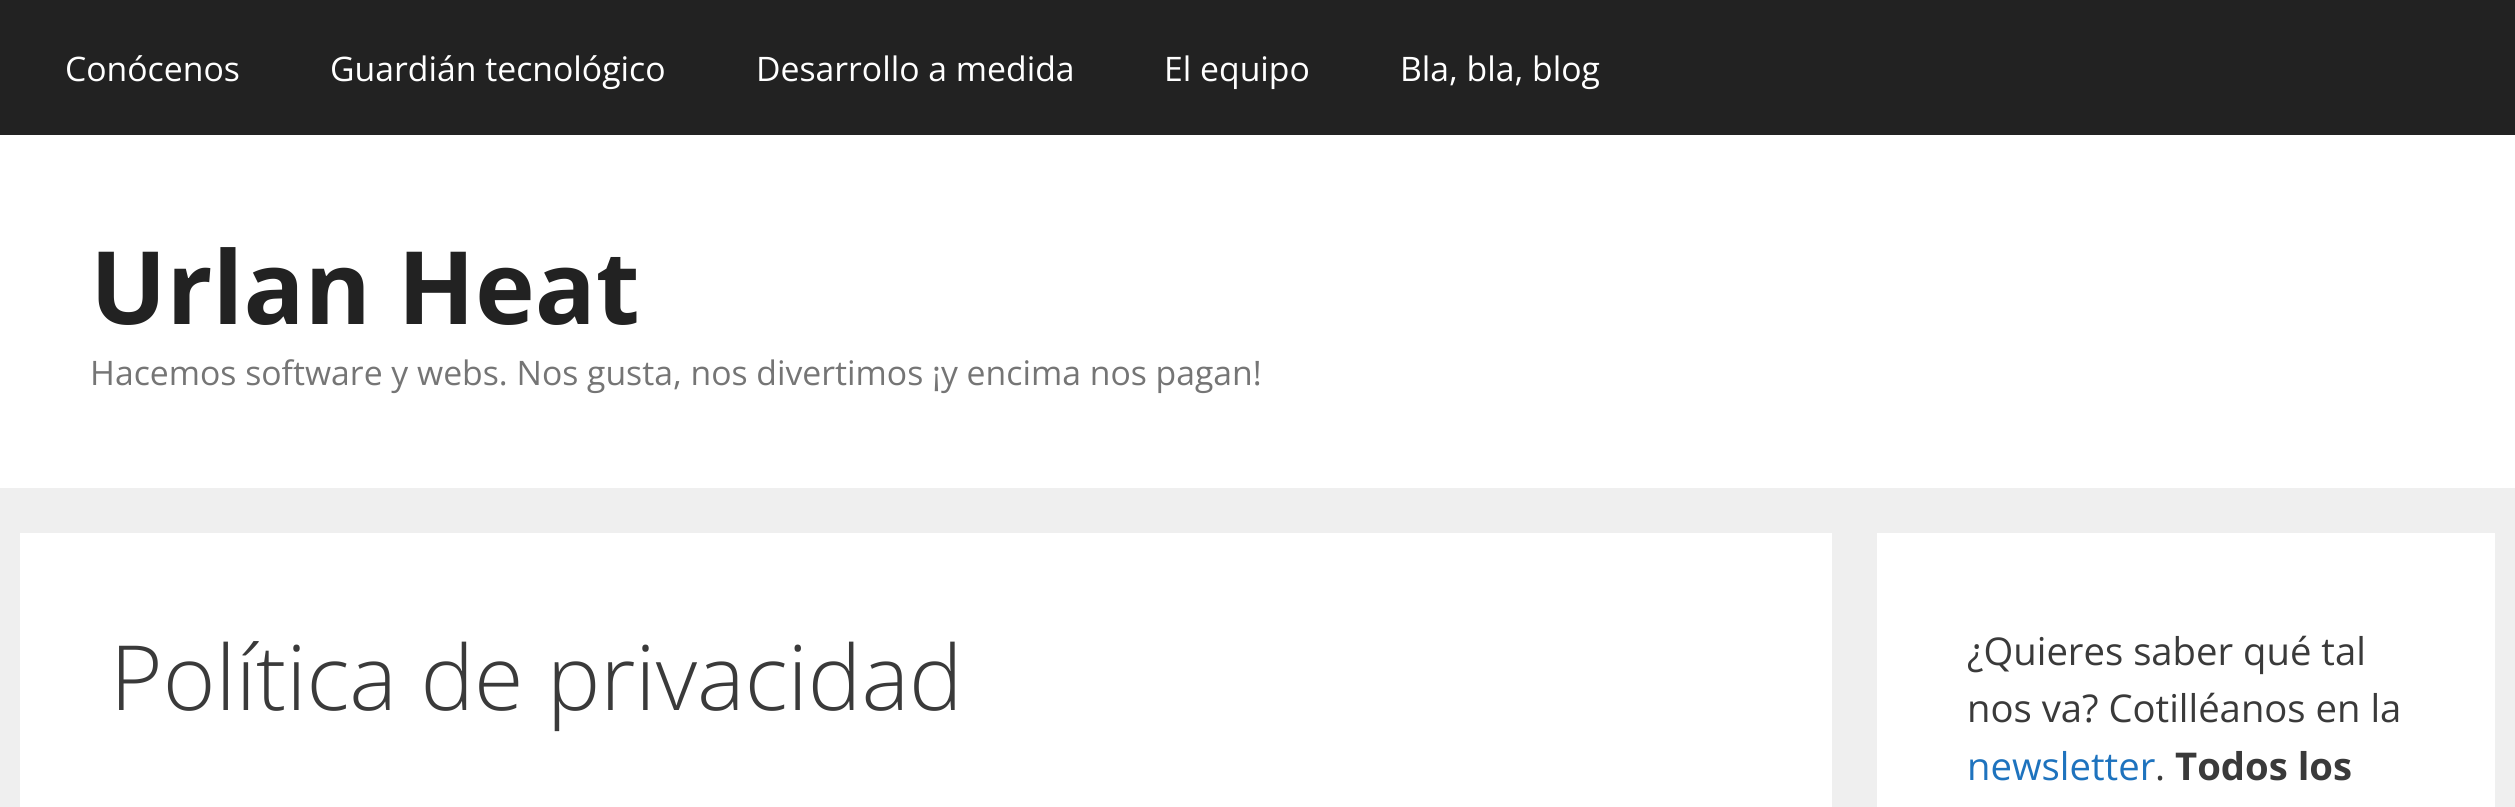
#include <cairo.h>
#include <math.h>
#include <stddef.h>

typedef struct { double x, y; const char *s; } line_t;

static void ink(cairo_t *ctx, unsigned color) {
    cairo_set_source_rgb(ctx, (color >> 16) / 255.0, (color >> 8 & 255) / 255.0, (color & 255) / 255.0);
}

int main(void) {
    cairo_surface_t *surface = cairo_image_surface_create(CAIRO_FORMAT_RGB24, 2515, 807);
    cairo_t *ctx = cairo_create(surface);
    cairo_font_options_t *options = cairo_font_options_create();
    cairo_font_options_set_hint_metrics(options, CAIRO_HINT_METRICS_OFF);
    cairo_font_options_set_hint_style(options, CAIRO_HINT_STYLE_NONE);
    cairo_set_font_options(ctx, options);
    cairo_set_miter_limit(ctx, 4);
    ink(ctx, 0xEFEFEF);
    cairo_paint(ctx);
    ink(ctx, 0x222222);
    cairo_rectangle(ctx, 0, 0, 2515, 135);
    cairo_fill(ctx);
    cairo_select_font_face(ctx, "Open Sans", CAIRO_FONT_SLANT_NORMAL, CAIRO_FONT_WEIGHT_NORMAL);
    cairo_set_font_size(ctx, 33.75);
    ink(ctx, 0xFFFFFF);
    {
        static const line_t items[] = {
            {65, 81, "Conócenos"},
            {330, 81, "Guardián tecnológico"},
            {756, 81, "Desarrollo a medida"},
            {1164, 81, "El equipo"},
            {1400, 81, "Bla, bla, blog"},
        };
        for (size_t i = 0; i < sizeof items / sizeof *items; i++) {
            cairo_move_to(ctx, items[i].x, items[i].y);
            cairo_show_text(ctx, items[i].s);
        }
    }
    cairo_rectangle(ctx, 0, 135, 2515, 353);
    cairo_fill(ctx);
    cairo_select_font_face(ctx, "Open Sans", CAIRO_FONT_SLANT_NORMAL, CAIRO_FONT_WEIGHT_BOLD);
    cairo_set_font_size(ctx, 101.25);
    ink(ctx, 0x222222);
    cairo_move_to(ctx, 90, 324);
    cairo_show_text(ctx, "Urlan Heat");
    cairo_select_font_face(ctx, "Open Sans", CAIRO_FONT_SLANT_NORMAL, CAIRO_FONT_WEIGHT_NORMAL);
    cairo_set_font_size(ctx, 33.75);
    ink(ctx, 0x757575);
    cairo_move_to(ctx, 90, 385);
    cairo_show_text(ctx, "Hacemos software y webs. Nos gusta, nos divertimos ¡y encima nos pagan!");
    ink(ctx, 0xFFFFFF);
    cairo_rectangle(ctx, 20, 533, 1812, 274);
    cairo_fill(ctx);
    cairo_select_font_face(ctx, "Open Sans Light", CAIRO_FONT_SLANT_NORMAL, CAIRO_FONT_WEIGHT_NORMAL);
    cairo_set_font_size(ctx, 90);
    ink(ctx, 0x3A3A3A);
    cairo_move_to(ctx, 110, 710);
    cairo_show_text(ctx, "Política de privacidad");
    ink(ctx, 0xFFFFFF);
    cairo_rectangle(ctx, 1877, 533, 618, 274);
    cairo_fill(ctx);
    cairo_select_font_face(ctx, "Open Sans", CAIRO_FONT_SLANT_NORMAL, CAIRO_FONT_WEIGHT_NORMAL);
    cairo_set_font_size(ctx, 38.25);
    ink(ctx, 0x3A3A3A);
    cairo_move_to(ctx, 1967, 665);
    cairo_show_text(ctx, "¿Quieres saber qué tal");
    cairo_move_to(ctx, 1967, 722);
    cairo_show_text(ctx, "nos va? Cotilléanos en la");
    ink(ctx, 0x1E73BE);
    cairo_move_to(ctx, 1967, 780);
    cairo_show_text(ctx, "newsletter");
    ink(ctx, 0x3A3A3A);
    cairo_move_to(ctx, 2155, 780);
    cairo_show_text(ctx, ".");
    cairo_select_font_face(ctx, "Open Sans", CAIRO_FONT_SLANT_NORMAL, CAIRO_FONT_WEIGHT_BOLD);
    cairo_move_to(ctx, 2175, 780);
    cairo_show_text(ctx, "Todos los");
    cairo_surface_write_to_png(surface, "image.png");
    cairo_font_options_destroy(options);
    cairo_destroy(ctx);
    cairo_surface_destroy(surface);
    return 0;
}
